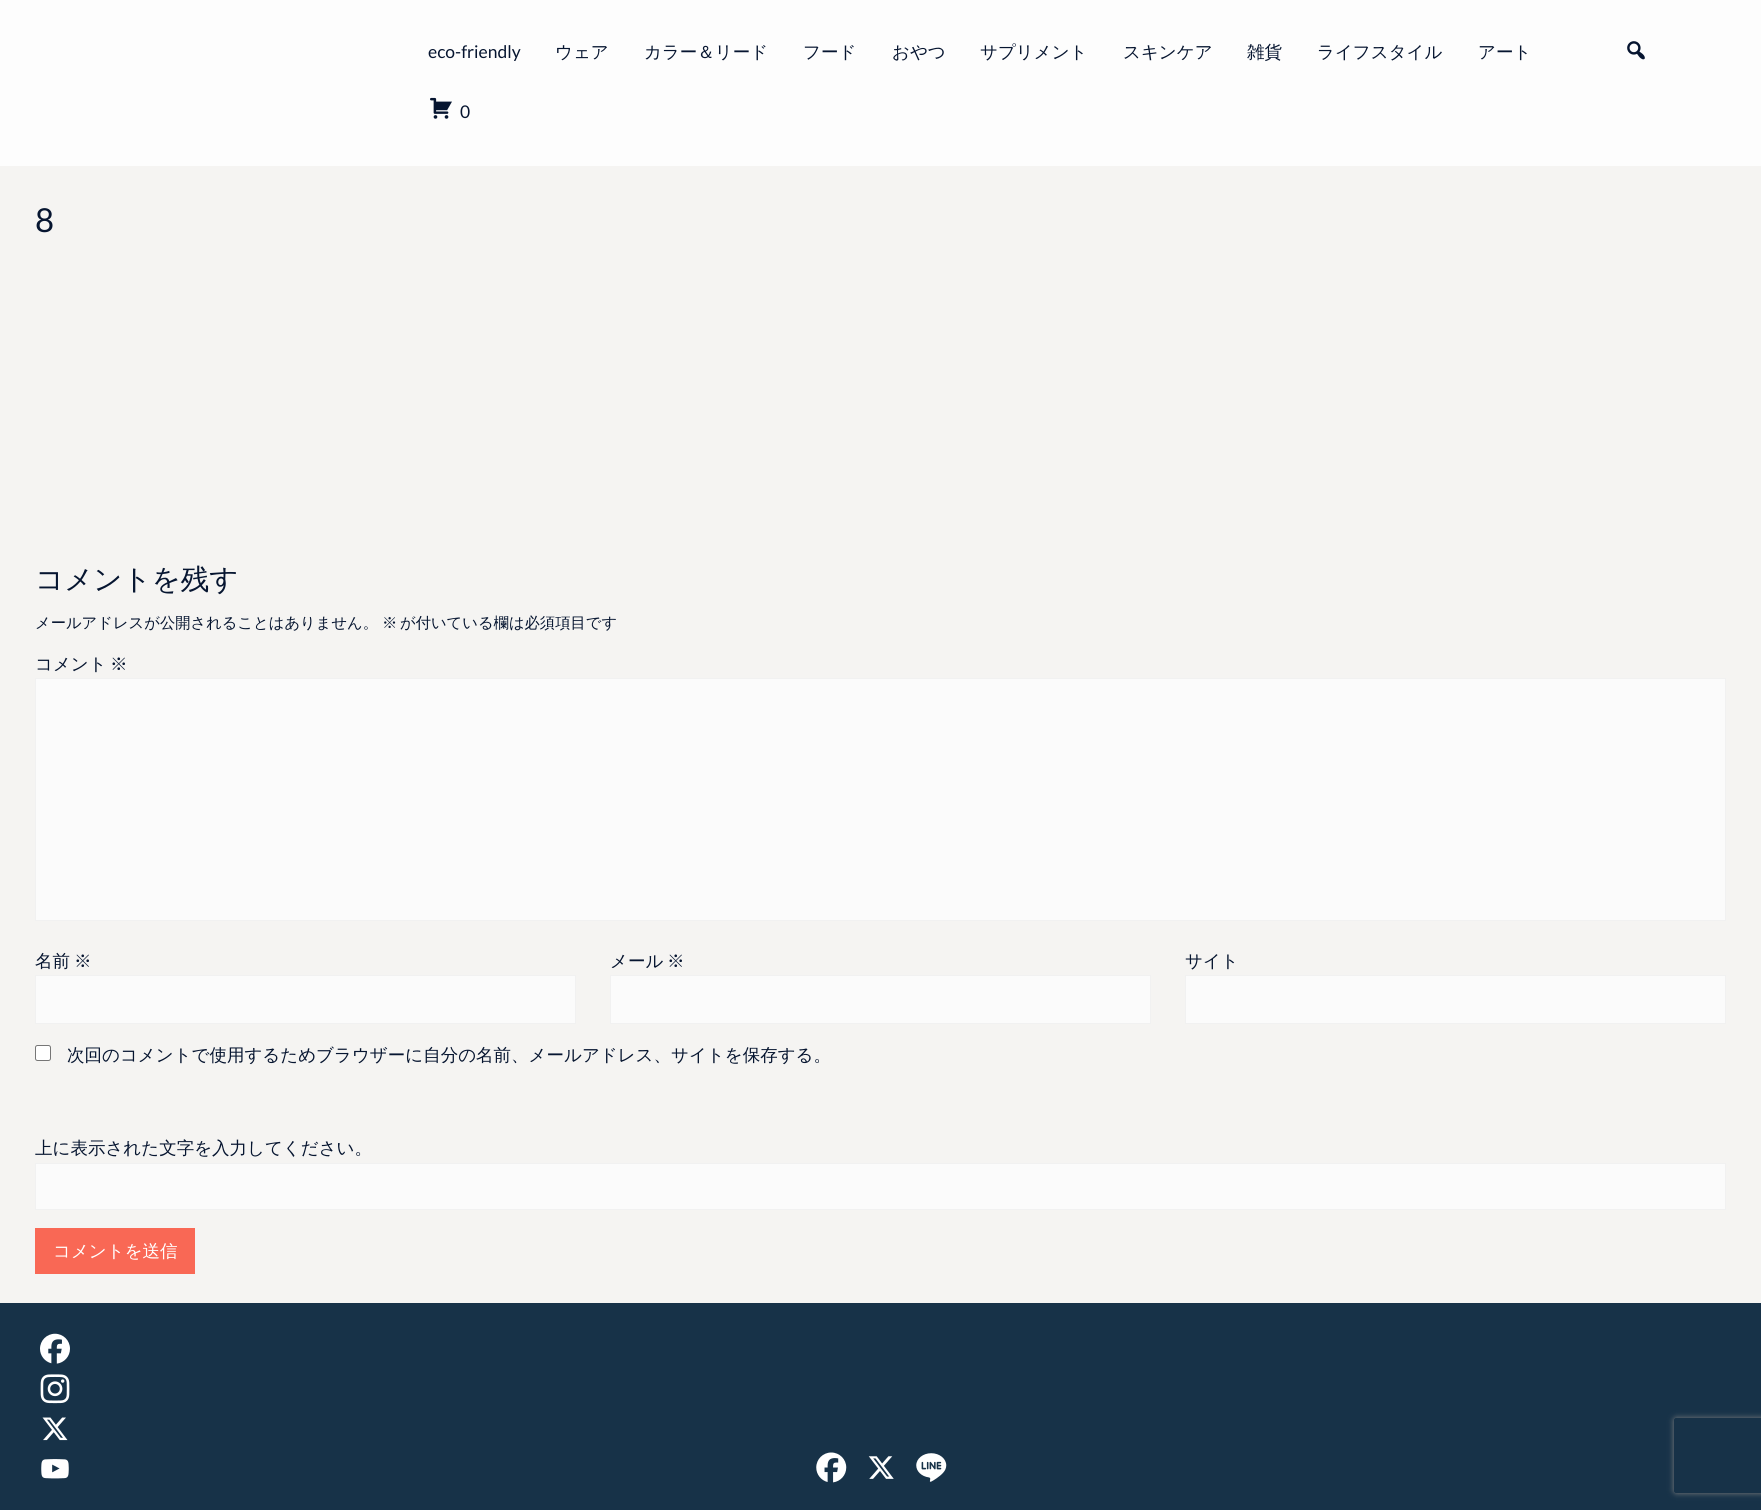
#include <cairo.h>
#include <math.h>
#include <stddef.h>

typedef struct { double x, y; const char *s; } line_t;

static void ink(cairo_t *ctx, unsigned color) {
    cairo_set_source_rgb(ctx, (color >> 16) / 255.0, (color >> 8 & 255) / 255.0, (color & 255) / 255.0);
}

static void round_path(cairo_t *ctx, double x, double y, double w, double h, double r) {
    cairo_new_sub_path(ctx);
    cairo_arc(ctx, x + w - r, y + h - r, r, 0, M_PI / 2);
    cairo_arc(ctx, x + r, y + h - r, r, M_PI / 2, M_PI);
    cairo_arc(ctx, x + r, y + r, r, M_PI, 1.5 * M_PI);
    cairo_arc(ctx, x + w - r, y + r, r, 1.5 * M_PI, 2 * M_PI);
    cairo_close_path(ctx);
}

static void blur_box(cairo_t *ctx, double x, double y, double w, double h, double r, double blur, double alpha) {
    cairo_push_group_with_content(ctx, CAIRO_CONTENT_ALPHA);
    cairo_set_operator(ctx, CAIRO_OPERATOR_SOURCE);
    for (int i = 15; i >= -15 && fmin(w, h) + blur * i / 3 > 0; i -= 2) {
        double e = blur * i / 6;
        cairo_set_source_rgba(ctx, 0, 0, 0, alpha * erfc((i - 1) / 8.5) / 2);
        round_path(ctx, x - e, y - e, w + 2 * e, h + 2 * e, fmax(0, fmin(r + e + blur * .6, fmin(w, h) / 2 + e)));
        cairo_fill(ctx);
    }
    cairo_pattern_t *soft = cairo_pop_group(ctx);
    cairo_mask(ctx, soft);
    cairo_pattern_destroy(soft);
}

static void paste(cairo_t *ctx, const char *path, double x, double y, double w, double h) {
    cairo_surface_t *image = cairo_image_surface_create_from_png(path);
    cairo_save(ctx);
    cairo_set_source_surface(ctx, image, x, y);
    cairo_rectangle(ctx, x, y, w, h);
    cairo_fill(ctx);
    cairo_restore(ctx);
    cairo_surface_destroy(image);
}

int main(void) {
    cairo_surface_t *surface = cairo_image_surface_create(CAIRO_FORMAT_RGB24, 1761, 1510);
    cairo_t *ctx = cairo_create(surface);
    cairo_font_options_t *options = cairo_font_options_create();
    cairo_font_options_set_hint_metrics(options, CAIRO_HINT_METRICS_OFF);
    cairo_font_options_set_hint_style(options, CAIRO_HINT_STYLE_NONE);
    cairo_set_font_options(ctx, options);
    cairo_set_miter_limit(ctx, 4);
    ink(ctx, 0xF5F4F2);
    cairo_paint(ctx);
    ink(ctx, 0xFDFDFD);
    cairo_rectangle(ctx, 0, 0, 1761, 166);
    cairo_fill(ctx);
    cairo_select_font_face(ctx, "Lato", CAIRO_FONT_SLANT_NORMAL, CAIRO_FONT_WEIGHT_NORMAL);
    cairo_set_font_size(ctx, 17.5);
    ink(ctx, 0x061530);
    cairo_move_to(ctx, 428, 58);
    cairo_show_text(ctx, "eco-friendly");
    cairo_select_font_face(ctx, "WenQuanYi Zen Hei Medium", CAIRO_FONT_SLANT_NORMAL, CAIRO_FONT_WEIGHT_NORMAL);
    {
        static const line_t items[] = {
            {555, 58, "ウェア"},
            {644, 58, "カラー＆リード"},
            {803, 58, "フード"},
            {892, 58, "おやつ"},
            {980, 58, "サプリメント"},
            {1123, 58, "スキンケア"},
            {1247, 58, "雑貨"},
            {1317, 58, "ライフスタイル"},
            {1478, 58, "アート"},
        };
        for (size_t i = 0; i < sizeof items / sizeof *items; i++) {
            cairo_move_to(ctx, items[i].x, items[i].y);
            cairo_show_text(ctx, items[i].s);
        }
    }
    paste(ctx, "media/1.png", 1627, 41, 18, 19);
    paste(ctx, "media/2.png", 430, 97, 22, 22);
    cairo_select_font_face(ctx, "Lato", CAIRO_FONT_SLANT_NORMAL, CAIRO_FONT_WEIGHT_NORMAL);
    cairo_move_to(ctx, 460, 118);
    cairo_show_text(ctx, "0");
    cairo_set_font_size(ctx, 33);
    cairo_move_to(ctx, 35, 232);
    cairo_show_text(ctx, "8");
    cairo_select_font_face(ctx, "WenQuanYi Zen Hei Medium", CAIRO_FONT_SLANT_NORMAL, CAIRO_FONT_WEIGHT_NORMAL);
    cairo_set_font_size(ctx, 28.5);
    cairo_move_to(ctx, 35, 589);
    cairo_show_text(ctx, "コメントを残す");
    cairo_set_font_size(ctx, 15.3);
    {
        static const line_t items[] = {
            {35, 628, "メールアドレスが公開されることはありません。"},
            {382, 628, "※"},
            {400, 628, "が付いている欄は必須項目です"},
        };
        for (size_t i = 0; i < sizeof items / sizeof *items; i++) {
            cairo_move_to(ctx, items[i].x, items[i].y);
            cairo_show_text(ctx, items[i].s);
        }
    }
    cairo_set_font_size(ctx, 17.5);
    cairo_move_to(ctx, 35, 670);
    cairo_show_text(ctx, "コメント");
    cairo_move_to(ctx, 110, 670);
    cairo_show_text(ctx, "※");
    ink(ctx, 0xFBFBFB);
    cairo_rectangle(ctx, 35.5, 678.5, 1690, 242);
    cairo_fill_preserve(ctx);
    ink(ctx, 0xF1F1F1);
    cairo_set_line_width(ctx, 1);
    cairo_stroke(ctx);
    ink(ctx, 0x061530);
    cairo_move_to(ctx, 35, 967);
    cairo_show_text(ctx, "名前");
    cairo_move_to(ctx, 74, 967);
    cairo_show_text(ctx, "※");
    ink(ctx, 0xFBFBFB);
    cairo_rectangle(ctx, 35.5, 975.5, 540, 48);
    cairo_fill_preserve(ctx);
    ink(ctx, 0xF1F1F1);
    cairo_stroke(ctx);
    ink(ctx, 0x061530);
    cairo_move_to(ctx, 610, 967);
    cairo_show_text(ctx, "メール");
    cairo_move_to(ctx, 667, 967);
    cairo_show_text(ctx, "※");
    ink(ctx, 0xFBFBFB);
    cairo_rectangle(ctx, 610.5, 975.5, 540, 48);
    cairo_fill_preserve(ctx);
    ink(ctx, 0xF1F1F1);
    cairo_stroke(ctx);
    ink(ctx, 0x061530);
    cairo_move_to(ctx, 1185, 967);
    cairo_show_text(ctx, "サイト");
    ink(ctx, 0xFBFBFB);
    cairo_rectangle(ctx, 1185.5, 975.5, 540, 48);
    cairo_fill_preserve(ctx);
    ink(ctx, 0xF1F1F1);
    cairo_stroke(ctx);
    ink(ctx, 0xFFFFFF);
    round_path(ctx, 35.5, 1045.5, 15, 15, 2);
    cairo_fill_preserve(ctx);
    ink(ctx, 0x767676);
    cairo_stroke(ctx);
    ink(ctx, 0x061530);
    cairo_move_to(ctx, 67, 1061);
    cairo_show_text(ctx, "次回のコメントで使用するためブラウザーに自分の名前、メールアドレス、サイトを保存する。");
    cairo_move_to(ctx, 35, 1154);
    cairo_show_text(ctx, "上に表示された文字を入力してください。");
    ink(ctx, 0xFBFBFB);
    cairo_rectangle(ctx, 35.5, 1163.5, 1690, 46);
    cairo_fill_preserve(ctx);
    ink(ctx, 0xF1F1F1);
    cairo_stroke(ctx);
    ink(ctx, 0xF96855);
    cairo_rectangle(ctx, 35, 1228, 160, 46);
    cairo_fill(ctx);
    ink(ctx, 0xFFFFFF);
    cairo_move_to(ctx, 53, 1257);
    cairo_show_text(ctx, "コメントを送信");
    ink(ctx, 0x173248);
    cairo_rectangle(ctx, 0, 1303, 1761, 207);
    cairo_fill(ctx);
    paste(ctx, "media/3.png", 40, 1333, 30, 31);
    paste(ctx, "media/4.png", 40, 1374, 30, 30);
    paste(ctx, "media/5.png", 42, 1417, 26, 24);
    paste(ctx, "media/6.png", 41, 1459, 28, 20);
    paste(ctx, "media/7.png", 816, 1452, 31, 31);
    paste(ctx, "media/8.png", 868, 1456, 26, 23);
    paste(ctx, "media/9.png", 916, 1453, 31, 29);
    cairo_save(ctx);
    cairo_set_fill_rule(ctx, CAIRO_FILL_RULE_EVEN_ODD);
    cairo_new_path(ctx);
    cairo_move_to(ctx, 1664, 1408);
    cairo_line_to(ctx, 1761, 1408);
    cairo_line_to(ctx, 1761, 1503);
    cairo_line_to(ctx, 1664, 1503);
    cairo_close_path(ctx);
    cairo_move_to(ctx, 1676.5, 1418);
    cairo_line_to(ctx, 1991.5, 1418);
    cairo_curve_to(ctx, 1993, 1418, 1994, 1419, 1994, 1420.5);
    cairo_line_to(ctx, 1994, 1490.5);
    cairo_curve_to(ctx, 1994, 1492, 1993, 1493, 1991.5, 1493);
    cairo_line_to(ctx, 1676.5, 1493);
    cairo_curve_to(ctx, 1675, 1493, 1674, 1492, 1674, 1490.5);
    cairo_line_to(ctx, 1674, 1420.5);
    cairo_curve_to(ctx, 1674, 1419, 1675, 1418, 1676.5, 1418);
    cairo_close_path(ctx);
    cairo_clip(ctx);
    ink(ctx, 0x808080);
    blur_box(ctx, 1674, 1418, 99, 75, 2.5, 3, 1);
    cairo_restore(ctx);
    cairo_surface_write_to_png(surface, "image.png");
    cairo_font_options_destroy(options);
    cairo_destroy(ctx);
    cairo_surface_destroy(surface);
    return 0;
}
